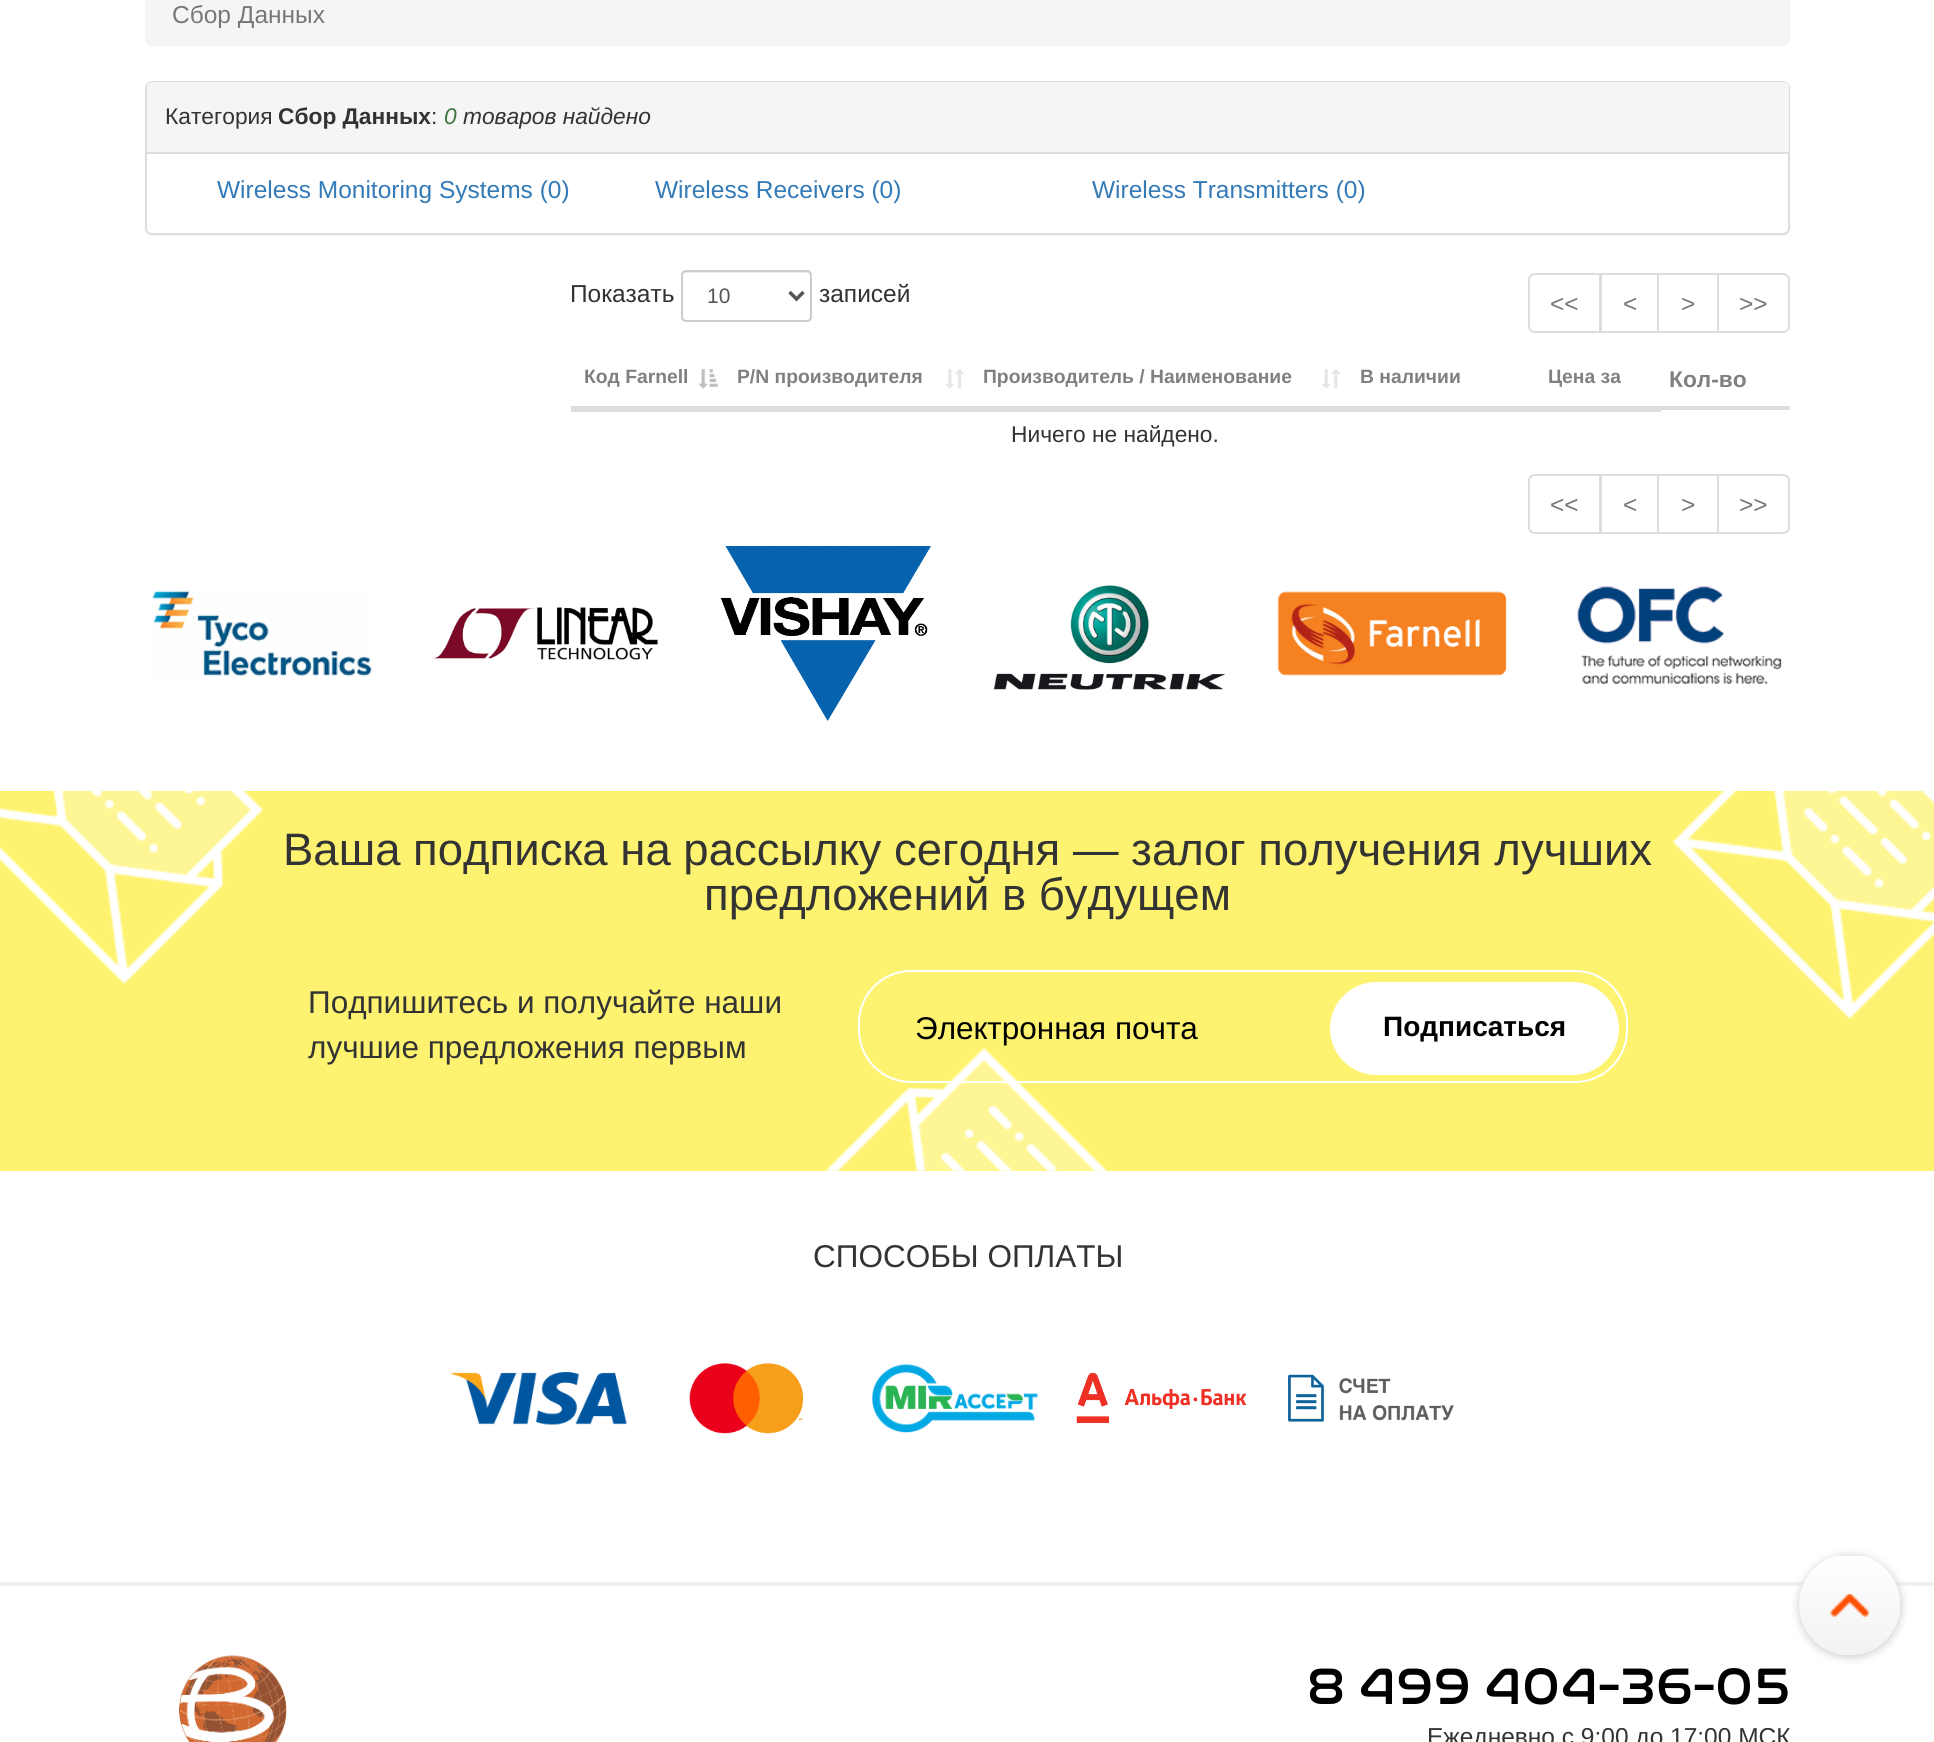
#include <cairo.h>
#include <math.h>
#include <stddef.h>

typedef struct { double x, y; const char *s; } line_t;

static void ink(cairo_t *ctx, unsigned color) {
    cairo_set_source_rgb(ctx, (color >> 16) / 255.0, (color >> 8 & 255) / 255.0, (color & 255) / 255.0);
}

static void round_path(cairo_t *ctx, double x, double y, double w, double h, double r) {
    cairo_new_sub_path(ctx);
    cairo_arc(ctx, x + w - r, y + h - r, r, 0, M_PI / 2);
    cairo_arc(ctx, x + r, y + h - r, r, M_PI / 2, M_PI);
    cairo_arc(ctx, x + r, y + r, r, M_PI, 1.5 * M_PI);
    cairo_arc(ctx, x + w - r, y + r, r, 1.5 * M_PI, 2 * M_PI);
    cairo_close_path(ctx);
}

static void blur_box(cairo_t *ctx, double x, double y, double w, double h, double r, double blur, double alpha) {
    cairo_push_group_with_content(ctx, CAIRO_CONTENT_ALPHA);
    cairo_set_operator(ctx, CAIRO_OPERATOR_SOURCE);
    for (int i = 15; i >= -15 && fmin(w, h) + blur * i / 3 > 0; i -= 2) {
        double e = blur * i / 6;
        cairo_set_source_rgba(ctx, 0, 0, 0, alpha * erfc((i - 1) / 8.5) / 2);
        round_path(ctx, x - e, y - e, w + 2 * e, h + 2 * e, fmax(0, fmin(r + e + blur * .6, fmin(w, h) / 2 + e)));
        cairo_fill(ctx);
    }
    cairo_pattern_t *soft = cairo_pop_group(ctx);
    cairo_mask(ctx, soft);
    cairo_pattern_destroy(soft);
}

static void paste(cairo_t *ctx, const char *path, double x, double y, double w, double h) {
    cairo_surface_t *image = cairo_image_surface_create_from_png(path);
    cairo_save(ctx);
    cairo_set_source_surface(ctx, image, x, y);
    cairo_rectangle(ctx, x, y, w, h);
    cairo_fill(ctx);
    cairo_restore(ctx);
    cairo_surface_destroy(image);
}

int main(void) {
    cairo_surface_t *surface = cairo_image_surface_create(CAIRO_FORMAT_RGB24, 1934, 1742);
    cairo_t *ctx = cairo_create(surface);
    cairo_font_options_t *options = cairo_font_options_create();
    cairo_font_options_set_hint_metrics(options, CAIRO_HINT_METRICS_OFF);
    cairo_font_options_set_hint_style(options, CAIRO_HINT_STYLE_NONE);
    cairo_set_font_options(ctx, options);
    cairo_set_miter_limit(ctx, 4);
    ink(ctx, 0xFFFFFF);
    cairo_paint(ctx);
    ink(ctx, 0xF5F5F5);
    round_path(ctx, 145, -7, 1645, 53, 7);
    cairo_fill(ctx);
    cairo_select_font_face(ctx, "Liberation Sans", CAIRO_FONT_SLANT_NORMAL, CAIRO_FONT_WEIGHT_NORMAL);
    cairo_set_font_size(ctx, 24.5);
    ink(ctx, 0x777777);
    cairo_move_to(ctx, 172, 23);
    cairo_show_text(ctx, "Сбор Данных");
    ink(ctx, 0x000000);
    blur_box(ctx, 145, 82, 1645, 154, 7, 1, 0.05);
    ink(ctx, 0xFFFFFF);
    round_path(ctx, 146, 82, 1643, 152, 6);
    cairo_fill_preserve(ctx);
    ink(ctx, 0xDDDDDD);
    cairo_stroke(ctx);
    ink(ctx, 0xF5F5F5);
    cairo_new_path(ctx);
    cairo_move_to(ctx, 152, 82);
    cairo_line_to(ctx, 1784, 82);
    cairo_curve_to(ctx, 1787, 82, 1789, 84, 1789, 87);
    cairo_line_to(ctx, 1789, 154);
    cairo_line_to(ctx, 147, 154);
    cairo_line_to(ctx, 147, 87);
    cairo_curve_to(ctx, 147, 84, 149, 82, 152, 82);
    cairo_close_path(ctx);
    cairo_fill(ctx);
    ink(ctx, 0xDDDDDD);
    cairo_rectangle(ctx, 147, 152, 1642, 2);
    cairo_fill(ctx);
    cairo_set_font_size(ctx, 22.75);
    ink(ctx, 0x333333);
    cairo_move_to(ctx, 165, 124);
    cairo_show_text(ctx, "Категория");
    cairo_select_font_face(ctx, "Liberation Sans", CAIRO_FONT_SLANT_NORMAL, CAIRO_FONT_WEIGHT_BOLD);
    cairo_move_to(ctx, 278, 124);
    cairo_show_text(ctx, "Сбор Данных");
    cairo_select_font_face(ctx, "Liberation Sans", CAIRO_FONT_SLANT_NORMAL, CAIRO_FONT_WEIGHT_NORMAL);
    cairo_move_to(ctx, 431, 124);
    cairo_show_text(ctx, ":");
    cairo_select_font_face(ctx, "Liberation Sans", CAIRO_FONT_SLANT_ITALIC, CAIRO_FONT_WEIGHT_NORMAL);
    ink(ctx, 0x3C763D);
    cairo_move_to(ctx, 444, 124);
    cairo_show_text(ctx, "0");
    ink(ctx, 0x333333);
    cairo_move_to(ctx, 463, 124);
    cairo_show_text(ctx, "товаров найдено");
    cairo_select_font_face(ctx, "Liberation Sans", CAIRO_FONT_SLANT_NORMAL, CAIRO_FONT_WEIGHT_NORMAL);
    cairo_set_font_size(ctx, 24.5);
    ink(ctx, 0x337AB7);
    {
        static const line_t items[] = {
            {217, 198, "Wireless Monitoring Systems (0)"},
            {655, 198, "Wireless Receivers (0)"},
            {1092, 198, "Wireless Transmitters (0)"},
        };
        for (size_t i = 0; i < sizeof items / sizeof *items; i++) {
            cairo_move_to(ctx, items[i].x, items[i].y);
            cairo_show_text(ctx, items[i].s);
        }
    }
    ink(ctx, 0x333333);
    cairo_move_to(ctx, 570, 302);
    cairo_show_text(ctx, "Показать");
    ink(ctx, 0xECECEC);
    cairo_new_path(ctx);
    cairo_move_to(ctx, 686, 273);
    cairo_line_to(ctx, 807, 273);
    cairo_line_to(ctx, 809, 274);
    cairo_line_to(ctx, 810, 276);
    cairo_curve_to(ctx, 810, 273, 809, 271, 806, 271);
    cairo_line_to(ctx, 687, 271);
    cairo_line_to(ctx, 684, 272);
    cairo_line_to(ctx, 683, 274);
    cairo_close_path(ctx);
    cairo_fill(ctx);
    round_path(ctx, 682, 271, 129, 50, 4);
    ink(ctx, 0xCCCCCC);
    cairo_stroke(ctx);
    cairo_new_path(ctx);
    cairo_move_to(ctx, 789.5, 292);
    cairo_line_to(ctx, 796.5, 299);
    cairo_line_to(ctx, 803.5, 292);
    ink(ctx, 0x555555);
    cairo_set_line_width(ctx, 3.5);
    cairo_stroke(ctx);
    cairo_set_font_size(ctx, 21);
    cairo_move_to(ctx, 707, 303);
    cairo_show_text(ctx, "10");
    cairo_set_font_size(ctx, 24.5);
    ink(ctx, 0x333333);
    cairo_move_to(ctx, 819, 302);
    cairo_show_text(ctx, "записей");
    cairo_new_path(ctx);
    cairo_move_to(ctx, 1535, 274);
    cairo_line_to(ctx, 1600, 274);
    cairo_line_to(ctx, 1600, 332);
    cairo_line_to(ctx, 1535, 332);
    cairo_curve_to(ctx, 1531.5, 332, 1529, 329.5, 1529, 326);
    cairo_line_to(ctx, 1529, 280);
    cairo_curve_to(ctx, 1529, 276.5, 1531.5, 274, 1535, 274);
    cairo_close_path(ctx);
    ink(ctx, 0xDDDDDD);
    cairo_set_line_width(ctx, 2);
    cairo_stroke(ctx);
    ink(ctx, 0x777777);
    cairo_move_to(ctx, 1550, 312);
    cairo_show_text(ctx, "<<");
    cairo_rectangle(ctx, 1601, 274, 57, 58);
    ink(ctx, 0xDDDDDD);
    cairo_stroke(ctx);
    ink(ctx, 0x777777);
    cairo_move_to(ctx, 1623, 312);
    cairo_show_text(ctx, "<");
    cairo_rectangle(ctx, 1658, 274, 60, 58);
    ink(ctx, 0xDDDDDD);
    cairo_stroke(ctx);
    ink(ctx, 0x777777);
    cairo_move_to(ctx, 1681, 312);
    cairo_show_text(ctx, ">");
    ink(ctx, 0xFFFFFF);
    cairo_new_path(ctx);
    cairo_move_to(ctx, 1718, 274);
    cairo_line_to(ctx, 1783, 274);
    cairo_curve_to(ctx, 1786.5, 274, 1789, 276.5, 1789, 280);
    cairo_line_to(ctx, 1789, 326);
    cairo_curve_to(ctx, 1789, 329.5, 1786.5, 332, 1783, 332);
    cairo_line_to(ctx, 1718, 332);
    cairo_close_path(ctx);
    cairo_fill_preserve(ctx);
    ink(ctx, 0xDDDDDD);
    cairo_stroke(ctx);
    ink(ctx, 0x777777);
    cairo_move_to(ctx, 1739, 312);
    cairo_show_text(ctx, ">>");
    ink(ctx, 0xDDDDDD);
    cairo_rectangle(ctx, 571, 406, 780, 4);
    cairo_fill(ctx);
    cairo_select_font_face(ctx, "Liberation Sans", CAIRO_FONT_SLANT_NORMAL, CAIRO_FONT_WEIGHT_BOLD);
    cairo_set_font_size(ctx, 19.3);
    ink(ctx, 0x808080);
    cairo_move_to(ctx, 584, 383);
    cairo_show_text(ctx, "Код Farnell");
    paste(ctx, "media/1.png", 699, 369, 19, 20);
    cairo_move_to(ctx, 737, 383);
    cairo_show_text(ctx, "P/N производителя");
    paste(ctx, "media/2.png", 945, 369, 19, 20);
    cairo_move_to(ctx, 983, 383);
    cairo_show_text(ctx, "Производитель / Наименование");
    paste(ctx, "media/3.png", 1322, 369, 18, 20);
    ink(ctx, 0xDDDDDD);
    cairo_rectangle(ctx, 1351, 406, 439, 4);
    cairo_fill(ctx);
    ink(ctx, 0x808080);
    cairo_move_to(ctx, 1360, 383);
    cairo_show_text(ctx, "В наличии");
    cairo_move_to(ctx, 1548, 383);
    cairo_show_text(ctx, "Цена за");
    cairo_set_font_size(ctx, 22.75);
    cairo_move_to(ctx, 1669, 387);
    cairo_show_text(ctx, "Кол-во");
    ink(ctx, 0xDDDDDD);
    cairo_rectangle(ctx, 571, 410, 1090, 2);
    cairo_fill(ctx);
    cairo_select_font_face(ctx, "Liberation Sans", CAIRO_FONT_SLANT_NORMAL, CAIRO_FONT_WEIGHT_NORMAL);
    ink(ctx, 0x333333);
    cairo_move_to(ctx, 1011, 442);
    cairo_show_text(ctx, "Ничего не найдено.");
    cairo_new_path(ctx);
    cairo_move_to(ctx, 1535, 475);
    cairo_line_to(ctx, 1600, 475);
    cairo_line_to(ctx, 1600, 533);
    cairo_line_to(ctx, 1535, 533);
    cairo_curve_to(ctx, 1531.5, 533, 1529, 530.5, 1529, 527);
    cairo_line_to(ctx, 1529, 481);
    cairo_curve_to(ctx, 1529, 477.5, 1531.5, 475, 1535, 475);
    cairo_close_path(ctx);
    ink(ctx, 0xDDDDDD);
    cairo_stroke(ctx);
    cairo_set_font_size(ctx, 24.5);
    ink(ctx, 0x777777);
    cairo_move_to(ctx, 1550, 513);
    cairo_show_text(ctx, "<<");
    cairo_rectangle(ctx, 1601, 475, 57, 58);
    ink(ctx, 0xDDDDDD);
    cairo_stroke(ctx);
    ink(ctx, 0x777777);
    cairo_move_to(ctx, 1623, 513);
    cairo_show_text(ctx, "<");
    cairo_rectangle(ctx, 1658, 475, 60, 58);
    ink(ctx, 0xDDDDDD);
    cairo_stroke(ctx);
    ink(ctx, 0x777777);
    cairo_move_to(ctx, 1681, 513);
    cairo_show_text(ctx, ">");
    ink(ctx, 0xFFFFFF);
    cairo_new_path(ctx);
    cairo_move_to(ctx, 1718, 475);
    cairo_line_to(ctx, 1783, 475);
    cairo_curve_to(ctx, 1786.5, 475, 1789, 477.5, 1789, 481);
    cairo_line_to(ctx, 1789, 527);
    cairo_curve_to(ctx, 1789, 530.5, 1786.5, 533, 1783, 533);
    cairo_line_to(ctx, 1718, 533);
    cairo_close_path(ctx);
    cairo_fill_preserve(ctx);
    ink(ctx, 0xDDDDDD);
    cairo_stroke(ctx);
    ink(ctx, 0x777777);
    cairo_move_to(ctx, 1739, 513);
    cairo_show_text(ctx, ">>");
    paste(ctx, "media/4.png", 152, 590, 220, 87);
    paste(ctx, "media/5.png", 430, 607, 228, 53);
    paste(ctx, "media/6.png", 721, 546, 210, 175);
    paste(ctx, "media/7.png", 994, 585, 231, 105);
    paste(ctx, "media/8.png", 1277, 591, 230, 85);
    paste(ctx, "media/9.png", 1577, 586, 205, 98);
    ink(ctx, 0xFEF370);
    cairo_rectangle(ctx, 0, 791, 1934, 380);
    cairo_fill(ctx);
    paste(ctx, "media/10.png", 0, 791, 1934, 380);
    cairo_set_font_size(ctx, 45.5);
    ink(ctx, 0x333333);
    cairo_move_to(ctx, 283, 865);
    cairo_show_text(ctx, "Ваша подписка на рассылку сегодня — залог получения лучших");
    cairo_move_to(ctx, 704, 910);
    cairo_show_text(ctx, "предложений в будущем");
    cairo_set_font_size(ctx, 31.5);
    cairo_move_to(ctx, 308, 1013);
    cairo_show_text(ctx, "Подпишитесь и получайте наши");
    cairo_move_to(ctx, 308, 1058);
    cairo_show_text(ctx, "лучшие предложения первым");
    round_path(ctx, 859, 971, 768, 111, 52);
    ink(ctx, 0xFFFFFF);
    cairo_stroke(ctx);
    ink(ctx, 0x000000);
    cairo_move_to(ctx, 915, 1039);
    cairo_show_text(ctx, "Электронная почта");
    ink(ctx, 0xFFFFFF);
    round_path(ctx, 1330, 982, 289, 93, 46.5);
    cairo_fill(ctx);
    cairo_select_font_face(ctx, "Liberation Sans", CAIRO_FONT_SLANT_NORMAL, CAIRO_FONT_WEIGHT_BOLD);
    cairo_set_font_size(ctx, 28);
    ink(ctx, 0x000000);
    cairo_move_to(ctx, 1383, 1036);
    cairo_show_text(ctx, "Подписаться");
    cairo_select_font_face(ctx, "Liberation Sans", CAIRO_FONT_SLANT_NORMAL, CAIRO_FONT_WEIGHT_NORMAL);
    cairo_set_font_size(ctx, 31.5);
    ink(ctx, 0x333333);
    cairo_move_to(ctx, 813, 1267);
    cairo_show_text(ctx, "СПОСОБЫ ОПЛАТЫ");
    paste(ctx, "media/11.png", 451, 1372, 176, 53);
    paste(ctx, "media/12.png", 689, 1363, 115, 71);
    paste(ctx, "media/13.png", 871, 1364, 167, 69);
    paste(ctx, "media/14.png", 1076, 1372, 171, 52);
    paste(ctx, "media/15.png", 1287, 1374, 167, 48);
    ink(ctx, 0xF1F1F1);
    cairo_rectangle(ctx, 0, 1582, 1934, 4);
    cairo_fill(ctx);
    ink(ctx, 0xCCCCCC);
    blur_box(ctx, 1799, 1556, 102, 101, 50.5, 4.5, 1);
    paste(ctx, "media/16.png", 1799, 1556, 101, 99);
    paste(ctx, "media/17.png", 179, 1655, 108, 87);
    cairo_select_font_face(ctx, "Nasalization", CAIRO_FONT_SLANT_NORMAL, CAIRO_FONT_WEIGHT_NORMAL);
    cairo_set_font_size(ctx, 52.5);
    ink(ctx, 0x000000);
    cairo_move_to(ctx, 1307, 1704);
    cairo_show_text(ctx, "8 499 404-36-05");
    cairo_select_font_face(ctx, "Liberation Sans", CAIRO_FONT_SLANT_NORMAL, CAIRO_FONT_WEIGHT_NORMAL);
    cairo_set_font_size(ctx, 24.5);
    ink(ctx, 0x333333);
    cairo_move_to(ctx, 1427, 1745);
    cairo_show_text(ctx, "Ежедневно с 9:00 до 17:00 МСК");
    cairo_surface_write_to_png(surface, "image.png");
    cairo_font_options_destroy(options);
    cairo_destroy(ctx);
    cairo_surface_destroy(surface);
    return 0;
}
